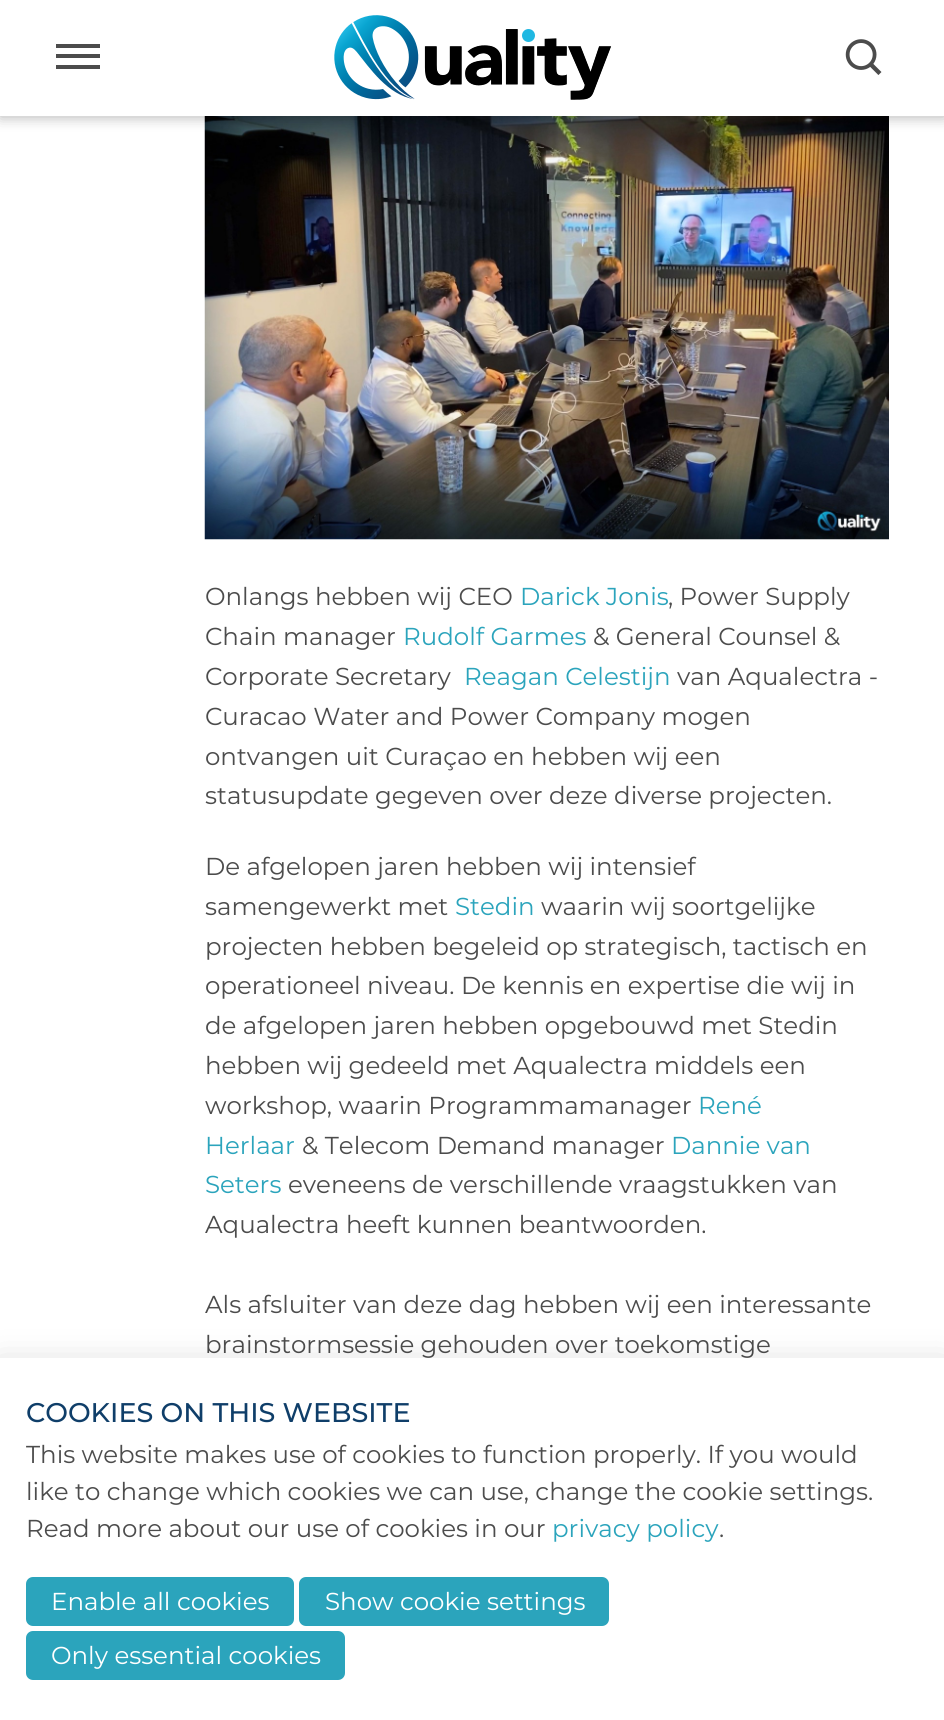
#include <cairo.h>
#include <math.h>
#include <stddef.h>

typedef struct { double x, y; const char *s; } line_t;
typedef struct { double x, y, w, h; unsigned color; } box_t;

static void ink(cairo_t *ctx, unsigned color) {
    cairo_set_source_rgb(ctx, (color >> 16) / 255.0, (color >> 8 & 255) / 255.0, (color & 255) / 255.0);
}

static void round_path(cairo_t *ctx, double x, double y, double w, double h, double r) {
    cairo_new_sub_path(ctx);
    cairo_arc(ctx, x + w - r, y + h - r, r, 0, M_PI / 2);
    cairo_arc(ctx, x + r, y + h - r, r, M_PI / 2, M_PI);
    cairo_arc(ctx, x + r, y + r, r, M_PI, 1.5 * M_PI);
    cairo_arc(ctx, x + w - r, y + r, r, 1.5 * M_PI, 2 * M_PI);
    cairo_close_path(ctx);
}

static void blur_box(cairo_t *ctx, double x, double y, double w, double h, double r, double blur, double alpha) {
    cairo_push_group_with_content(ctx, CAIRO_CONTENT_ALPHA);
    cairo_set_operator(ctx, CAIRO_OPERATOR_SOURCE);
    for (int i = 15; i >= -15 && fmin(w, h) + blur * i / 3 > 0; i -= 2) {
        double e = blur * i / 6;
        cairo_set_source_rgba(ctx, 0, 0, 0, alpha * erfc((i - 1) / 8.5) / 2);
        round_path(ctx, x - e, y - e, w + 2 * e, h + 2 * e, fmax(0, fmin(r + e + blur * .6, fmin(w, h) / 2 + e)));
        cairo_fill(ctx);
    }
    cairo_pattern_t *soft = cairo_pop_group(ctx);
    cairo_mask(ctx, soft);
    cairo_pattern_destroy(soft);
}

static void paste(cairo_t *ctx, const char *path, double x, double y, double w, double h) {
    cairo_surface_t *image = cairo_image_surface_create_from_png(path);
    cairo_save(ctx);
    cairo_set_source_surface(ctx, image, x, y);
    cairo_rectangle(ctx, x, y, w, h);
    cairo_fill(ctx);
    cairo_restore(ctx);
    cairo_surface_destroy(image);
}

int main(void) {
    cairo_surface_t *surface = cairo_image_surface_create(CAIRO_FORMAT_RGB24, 944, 1720);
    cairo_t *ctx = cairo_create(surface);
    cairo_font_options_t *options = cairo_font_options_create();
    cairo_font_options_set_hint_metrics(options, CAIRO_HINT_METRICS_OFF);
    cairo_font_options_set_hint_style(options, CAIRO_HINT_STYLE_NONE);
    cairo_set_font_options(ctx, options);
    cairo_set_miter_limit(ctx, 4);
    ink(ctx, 0xFFFFFF);
    cairo_paint(ctx);
    paste(ctx, "media/3.png", 204, 116, 685, 424);
    ink(ctx, 0x000000);
    blur_box(ctx, 0, 2, 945, 115, 0, 7, 0.3);
    {
        static const box_t items[] = {
            {0, 0, 944, 116, 0xFFFFFF},
            {56, 44, 44, 4, 0x4C4C4C},
            {56, 54, 44, 4, 0x4C4C4C},
            {56, 65, 44, 4, 0x4C4C4C},
        };
        for (size_t i = 0; i < sizeof items / sizeof *items; i++) {
            ink(ctx, items[i].color);
            cairo_rectangle(ctx, items[i].x, items[i].y, items[i].w, items[i].h);
            cairo_fill(ctx);
        }
    }
    paste(ctx, "media/1.png", 334, 15, 278, 85);
    paste(ctx, "media/2.png", 845, 39, 37, 36);
    cairo_select_font_face(ctx, "Montserrat", CAIRO_FONT_SLANT_NORMAL, CAIRO_FONT_WEIGHT_NORMAL);
    cairo_set_font_size(ctx, 24.5);
    cairo_move_to(ctx, 205, 605);
    cairo_show_text(ctx, "Onlangs hebben wij CEO");
    ink(ctx, 0x2BA4BC);
    cairo_move_to(ctx, 520, 605);
    cairo_show_text(ctx, "Darick Jonis");
    ink(ctx, 0x4C4C4C);
    cairo_move_to(ctx, 668, 605);
    cairo_show_text(ctx, ", Power Supply");
    cairo_move_to(ctx, 205, 645);
    cairo_show_text(ctx, "Chain manager");
    ink(ctx, 0x2BA4BC);
    cairo_move_to(ctx, 403, 645);
    cairo_show_text(ctx, "Rudolf Garmes");
    ink(ctx, 0x4C4C4C);
    cairo_move_to(ctx, 593, 645);
    cairo_show_text(ctx, "& General Counsel &");
    cairo_move_to(ctx, 205, 685);
    cairo_show_text(ctx, "Corporate Secretary");
    ink(ctx, 0x2BA4BC);
    cairo_move_to(ctx, 464, 685);
    cairo_show_text(ctx, "Reagan Celestijn");
    ink(ctx, 0x4C4C4C);
    {
        static const line_t items[] = {
            {677, 685, "van Aqualectra -"},
            {205, 725, "Curacao Water and Power Company mogen"},
            {205, 765, "ontvangen uit Curaçao en hebben wij een"},
            {205, 804, "statusupdate gegeven over deze diverse projecten."},
            {205, 875, "De afgelopen jaren hebben wij intensief"},
            {205, 915, "samengewerkt met"},
        };
        for (size_t i = 0; i < sizeof items / sizeof *items; i++) {
            cairo_move_to(ctx, items[i].x, items[i].y);
            cairo_show_text(ctx, items[i].s);
        }
    }
    ink(ctx, 0x2BA4BC);
    cairo_move_to(ctx, 455, 915);
    cairo_show_text(ctx, "Stedin");
    ink(ctx, 0x4C4C4C);
    {
        static const line_t items[] = {
            {541, 915, "waarin wij soortgelijke"},
            {205, 955, "projecten hebben begeleid op strategisch, tactisch en"},
            {205, 994, "operationeel niveau. De kennis en expertise die wij in"},
            {205, 1034, "de afgelopen jaren hebben opgebouwd met Stedin"},
            {205, 1074, "hebben wij gedeeld met Aqualectra middels een"},
            {205, 1114, "workshop, waarin Programmamanager"},
        };
        for (size_t i = 0; i < sizeof items / sizeof *items; i++) {
            cairo_move_to(ctx, items[i].x, items[i].y);
            cairo_show_text(ctx, items[i].s);
        }
    }
    ink(ctx, 0x2BA4BC);
    cairo_move_to(ctx, 698, 1114);
    cairo_show_text(ctx, "René");
    cairo_move_to(ctx, 205, 1154);
    cairo_show_text(ctx, "Herlaar");
    ink(ctx, 0x4C4C4C);
    cairo_move_to(ctx, 302, 1154);
    cairo_show_text(ctx, "& Telecom Demand manager");
    ink(ctx, 0x2BA4BC);
    cairo_move_to(ctx, 671, 1154);
    cairo_show_text(ctx, "Dannie van");
    cairo_move_to(ctx, 205, 1193);
    cairo_show_text(ctx, "Seters");
    ink(ctx, 0x4C4C4C);
    {
        static const line_t items[] = {
            {288, 1193, "eveneens de verschillende vraagstukken van"},
            {205, 1233, "Aqualectra heeft kunnen beantwoorden."},
            {205, 1313, "Als afsluiter van deze dag hebben wij een interessante"},
            {205, 1353, "brainstormsessie gehouden over toekomstige"},
        };
        for (size_t i = 0; i < sizeof items / sizeof *items; i++) {
            cairo_move_to(ctx, items[i].x, items[i].y);
            cairo_show_text(ctx, items[i].s);
        }
    }
    ink(ctx, 0x000000);
    blur_box(ctx, 0, 1367, 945, 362, 0, 17.5, 0.2);
    ink(ctx, 0xFFFFFF);
    cairo_rectangle(ctx, 0, 1358, 944, 362);
    cairo_fill(ctx);
    cairo_select_font_face(ctx, "Montserrat Medium", CAIRO_FONT_SLANT_NORMAL, CAIRO_FONT_WEIGHT_NORMAL);
    cairo_set_font_size(ctx, 27);
    ink(ctx, 0x0F3E69);
    cairo_move_to(ctx, 26, 1422);
    cairo_show_text(ctx, "COOKIES ON THIS WEBSITE");
    cairo_select_font_face(ctx, "Montserrat", CAIRO_FONT_SLANT_NORMAL, CAIRO_FONT_WEIGHT_NORMAL);
    cairo_set_font_size(ctx, 24.5);
    ink(ctx, 0x4C4C4C);
    {
        static const line_t items[] = {
            {26, 1463, "This website makes use of cookies to function properly. If you would"},
            {26, 1500, "like to change which cookies we can use, change the cookie settings."},
            {26, 1537, "Read more about our use of cookies in our"},
        };
        for (size_t i = 0; i < sizeof items / sizeof *items; i++) {
            cairo_move_to(ctx, items[i].x, items[i].y);
            cairo_show_text(ctx, items[i].s);
        }
    }
    ink(ctx, 0x2BA4BC);
    cairo_move_to(ctx, 552, 1537);
    cairo_show_text(ctx, "privacy policy");
    ink(ctx, 0x4C4C4C);
    cairo_move_to(ctx, 719, 1537);
    cairo_show_text(ctx, ".");
    ink(ctx, 0x2BA4BC);
    round_path(ctx, 26, 1577, 268, 49, 7);
    cairo_fill(ctx);
    ink(ctx, 0xFFFFFF);
    cairo_move_to(ctx, 51, 1610);
    cairo_show_text(ctx, "Enable all cookies");
    ink(ctx, 0x2BA4BC);
    round_path(ctx, 299, 1577, 310, 49, 7);
    cairo_fill(ctx);
    ink(ctx, 0xFFFFFF);
    cairo_move_to(ctx, 325, 1610);
    cairo_show_text(ctx, "Show cookie settings");
    ink(ctx, 0x2BA4BC);
    round_path(ctx, 26, 1631, 319, 49, 7);
    cairo_fill(ctx);
    ink(ctx, 0xFFFFFF);
    cairo_move_to(ctx, 51, 1664);
    cairo_show_text(ctx, "Only essential cookies");
    cairo_surface_write_to_png(surface, "image.png");
    cairo_font_options_destroy(options);
    cairo_destroy(ctx);
    cairo_surface_destroy(surface);
    return 0;
}
